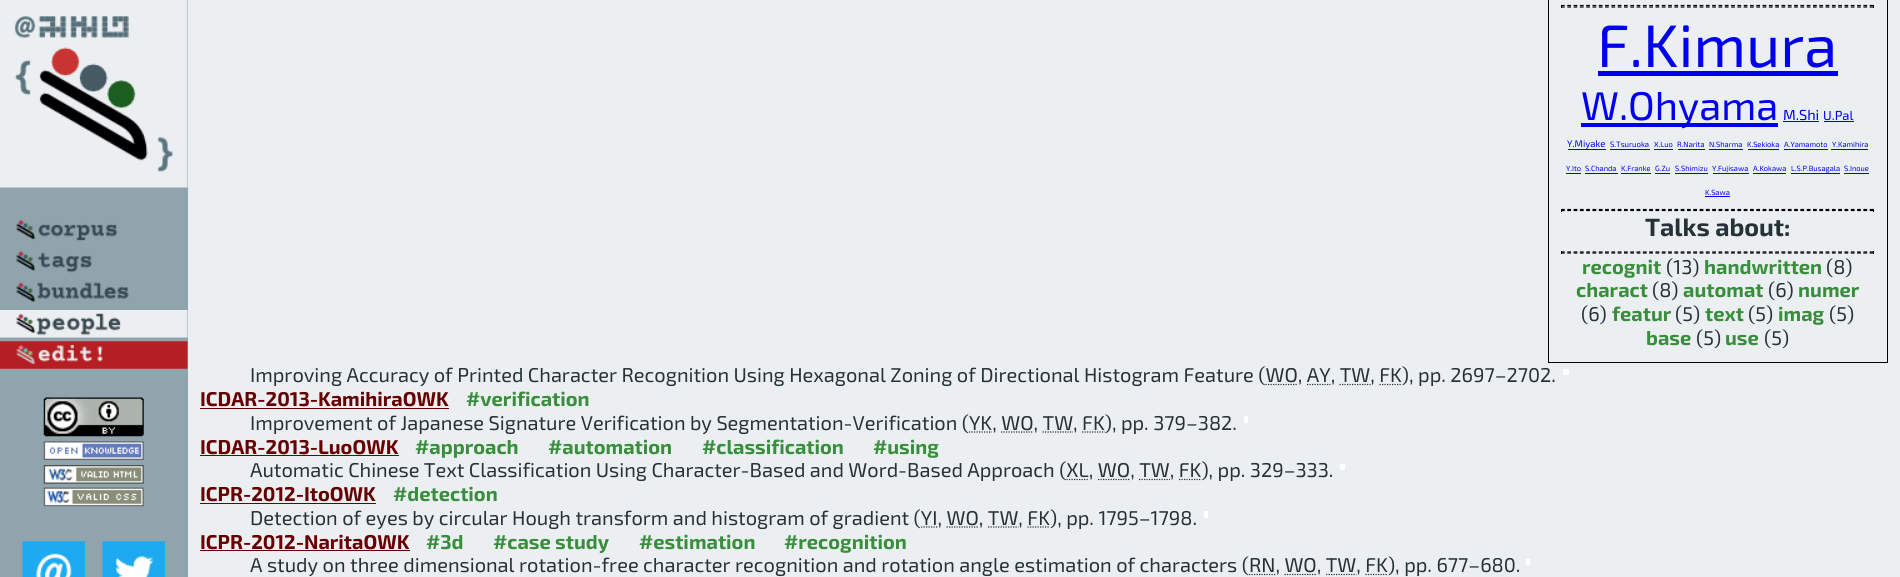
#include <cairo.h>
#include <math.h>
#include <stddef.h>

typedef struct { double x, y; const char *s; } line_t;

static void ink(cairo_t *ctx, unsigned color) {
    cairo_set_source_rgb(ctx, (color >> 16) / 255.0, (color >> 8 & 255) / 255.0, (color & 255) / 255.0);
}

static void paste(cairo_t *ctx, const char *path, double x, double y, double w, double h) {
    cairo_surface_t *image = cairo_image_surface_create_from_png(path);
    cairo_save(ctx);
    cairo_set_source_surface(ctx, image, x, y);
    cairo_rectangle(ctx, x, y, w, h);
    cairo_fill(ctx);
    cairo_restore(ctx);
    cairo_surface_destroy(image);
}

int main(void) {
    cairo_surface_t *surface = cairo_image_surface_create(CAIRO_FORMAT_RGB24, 1900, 577);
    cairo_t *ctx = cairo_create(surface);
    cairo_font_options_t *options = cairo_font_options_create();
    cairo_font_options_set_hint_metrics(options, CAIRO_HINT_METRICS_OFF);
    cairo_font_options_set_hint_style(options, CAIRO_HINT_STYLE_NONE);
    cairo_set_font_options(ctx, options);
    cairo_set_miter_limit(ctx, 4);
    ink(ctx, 0xECEFF1);
    cairo_paint(ctx);
    ink(ctx, 0x90A4AE);
    cairo_rectangle(ctx, 0, 0, 188, 577);
    cairo_fill(ctx);
    paste(ctx, "media/1.png", 0, 0, 188, 188);
    paste(ctx, "media/2.png", 16, 219, 102, 22);
    paste(ctx, "media/3.png", 16, 251, 76, 22);
    paste(ctx, "media/4.png", 16, 282, 113, 21);
    paste(ctx, "media/5.png", 0, 310, 188, 28);
    paste(ctx, "media/6.png", 0, 341, 188, 28);
    paste(ctx, "media/7.png", 43, 397, 101, 40);
    paste(ctx, "media/8.png", 43, 441, 101, 19);
    paste(ctx, "media/9.png", 43, 465, 101, 19);
    paste(ctx, "media/10.png", 43, 487, 101, 20);
    paste(ctx, "media/11.png", 22, 541, 63, 36);
    paste(ctx, "media/12.png", 102, 541, 63, 36);
    cairo_rectangle(ctx, 1548.5, -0.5, 339, 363);
    ink(ctx, 0x000000);
    cairo_set_line_width(ctx, 1);
    cairo_stroke(ctx);
    cairo_new_path(ctx);
    cairo_move_to(ctx, 1561, 5.5);
    cairo_line_to(ctx, 1874, 5.5);
    cairo_set_line_width(ctx, 1.2);
    cairo_set_dash(ctx, (double[]){3.75, 2.55}, 2, 0);
    cairo_stroke(ctx);
    cairo_rectangle(ctx, 1873, 5, 1, 3);
    cairo_fill(ctx);
    cairo_new_path(ctx);
    cairo_move_to(ctx, 1561, 7);
    cairo_line_to(ctx, 1874, 7);
    cairo_stroke(ctx);
    cairo_rectangle(ctx, 1561, 5, 1, 3);
    cairo_fill(ctx);
    cairo_select_font_face(ctx, "Exo 2", CAIRO_FONT_SLANT_NORMAL, CAIRO_FONT_WEIGHT_NORMAL);
    cairo_set_font_size(ctx, 60);
    ink(ctx, 0x0000EE);
    cairo_move_to(ctx, 1597, 67);
    cairo_show_text(ctx, "F.Kimura");
    cairo_rectangle(ctx, 1598, 71, 240, 5);
    cairo_fill(ctx);
    cairo_rectangle(ctx, 1581, 123, 197, 4);
    cairo_fill(ctx);
    cairo_set_font_size(ctx, 40);
    cairo_move_to(ctx, 1581, 120);
    cairo_show_text(ctx, "W.Ohyama");
    cairo_set_font_size(ctx, 14.5);
    cairo_move_to(ctx, 1783, 120);
    cairo_show_text(ctx, "M.Shi");
    cairo_rectangle(ctx, 1783, 121, 36, 1);
    cairo_fill(ctx);
    cairo_set_font_size(ctx, 13);
    cairo_move_to(ctx, 1823, 120);
    cairo_show_text(ctx, "U.Pal");
    cairo_rectangle(ctx, 1824, 121, 30, 1);
    cairo_fill(ctx);
    cairo_set_font_size(ctx, 9.5);
    cairo_move_to(ctx, 1567, 147);
    cairo_show_text(ctx, "Y.Miyake");
    cairo_rectangle(ctx, 1568, 149, 38, 1);
    cairo_fill(ctx);
    cairo_set_font_size(ctx, 7.75);
    cairo_move_to(ctx, 1610, 147);
    cairo_show_text(ctx, "S.Tsuruoka");
    cairo_rectangle(ctx, 1610, 149, 40, 1);
    cairo_fill(ctx);
    cairo_set_font_size(ctx, 7.5);
    cairo_move_to(ctx, 1654, 147);
    cairo_show_text(ctx, "X.Luo");
    cairo_rectangle(ctx, 1654, 149, 19, 1);
    cairo_fill(ctx);
    cairo_move_to(ctx, 1677, 147);
    cairo_show_text(ctx, "R.Narita");
    cairo_rectangle(ctx, 1678, 149, 27, 1);
    cairo_fill(ctx);
    cairo_move_to(ctx, 1709, 147);
    cairo_show_text(ctx, "N.Sharma");
    cairo_rectangle(ctx, 1709, 149, 34, 1);
    cairo_fill(ctx);
    cairo_move_to(ctx, 1747, 147);
    cairo_show_text(ctx, "K.Sekioka");
    cairo_rectangle(ctx, 1748, 149, 31, 1);
    cairo_fill(ctx);
    cairo_move_to(ctx, 1784, 147);
    cairo_show_text(ctx, "A.Yamamoto");
    cairo_rectangle(ctx, 1784, 149, 44, 1);
    cairo_fill(ctx);
    cairo_move_to(ctx, 1832, 147);
    cairo_show_text(ctx, "Y.Kamihira");
    cairo_rectangle(ctx, 1831, 149, 37, 1);
    cairo_fill(ctx);
    cairo_move_to(ctx, 1566, 171);
    cairo_show_text(ctx, "Y.Ito");
    cairo_rectangle(ctx, 1566, 173, 15, 1);
    cairo_fill(ctx);
    cairo_move_to(ctx, 1585, 171);
    cairo_show_text(ctx, "S.Chanda");
    cairo_rectangle(ctx, 1585, 173, 33, 1);
    cairo_fill(ctx);
    cairo_move_to(ctx, 1621, 171);
    cairo_show_text(ctx, "K.Franke");
    cairo_rectangle(ctx, 1621, 173, 30, 1);
    cairo_fill(ctx);
    cairo_move_to(ctx, 1655, 171);
    cairo_show_text(ctx, "G.Zu");
    cairo_rectangle(ctx, 1655, 173, 15, 1);
    cairo_fill(ctx);
    cairo_move_to(ctx, 1675, 171);
    cairo_show_text(ctx, "S.Shimizu");
    cairo_rectangle(ctx, 1675, 173, 33, 1);
    cairo_fill(ctx);
    cairo_move_to(ctx, 1712, 171);
    cairo_show_text(ctx, "Y.Fujisawa");
    cairo_rectangle(ctx, 1713, 173, 36, 1);
    cairo_fill(ctx);
    cairo_move_to(ctx, 1753, 171);
    cairo_show_text(ctx, "A.Kokawa");
    cairo_rectangle(ctx, 1753, 173, 33, 1);
    cairo_fill(ctx);
    cairo_move_to(ctx, 1791, 171);
    cairo_show_text(ctx, "L.S.P.Busagala");
    cairo_rectangle(ctx, 1791, 173, 49, 1);
    cairo_fill(ctx);
    cairo_move_to(ctx, 1844, 171);
    cairo_show_text(ctx, "S.Inoue");
    cairo_rectangle(ctx, 1844, 173, 25, 1);
    cairo_fill(ctx);
    cairo_move_to(ctx, 1705, 195);
    cairo_show_text(ctx, "K.Sawa");
    cairo_rectangle(ctx, 1705, 196, 25, 1);
    cairo_fill(ctx);
    cairo_new_path(ctx);
    cairo_move_to(ctx, 1561, 209.5);
    cairo_line_to(ctx, 1874, 209.5);
    ink(ctx, 0x000000);
    cairo_stroke(ctx);
    cairo_rectangle(ctx, 1873, 209, 1, 3);
    cairo_fill(ctx);
    cairo_new_path(ctx);
    cairo_move_to(ctx, 1561, 210.5);
    cairo_line_to(ctx, 1874, 210.5);
    cairo_stroke(ctx);
    cairo_rectangle(ctx, 1561, 209, 1, 3);
    cairo_fill(ctx);
    cairo_select_font_face(ctx, "Exo 2", CAIRO_FONT_SLANT_NORMAL, CAIRO_FONT_WEIGHT_BOLD);
    cairo_set_font_size(ctx, 25);
    ink(ctx, 0x263238);
    cairo_move_to(ctx, 1645, 236);
    cairo_show_text(ctx, "Talks about:");
    cairo_new_path(ctx);
    cairo_move_to(ctx, 1561, 252);
    cairo_line_to(ctx, 1874, 252);
    ink(ctx, 0x000000);
    cairo_stroke(ctx);
    cairo_rectangle(ctx, 1873, 251, 1, 3);
    cairo_fill(ctx);
    cairo_new_path(ctx);
    cairo_move_to(ctx, 1561, 253);
    cairo_line_to(ctx, 1874, 253);
    cairo_stroke(ctx);
    cairo_rectangle(ctx, 1561, 251, 1, 3);
    cairo_fill(ctx);
    cairo_set_font_size(ctx, 20);
    ink(ctx, 0x388E3C);
    cairo_move_to(ctx, 1582, 274);
    cairo_show_text(ctx, "recognit");
    cairo_select_font_face(ctx, "Exo 2", CAIRO_FONT_SLANT_NORMAL, CAIRO_FONT_WEIGHT_NORMAL);
    ink(ctx, 0x263238);
    cairo_move_to(ctx, 1666, 274);
    cairo_show_text(ctx, "(13)");
    cairo_select_font_face(ctx, "Exo 2", CAIRO_FONT_SLANT_NORMAL, CAIRO_FONT_WEIGHT_BOLD);
    ink(ctx, 0x388E3C);
    cairo_move_to(ctx, 1704, 274);
    cairo_show_text(ctx, "handwritten");
    cairo_select_font_face(ctx, "Exo 2", CAIRO_FONT_SLANT_NORMAL, CAIRO_FONT_WEIGHT_NORMAL);
    ink(ctx, 0x263238);
    cairo_move_to(ctx, 1826, 274);
    cairo_show_text(ctx, "(8)");
    cairo_select_font_face(ctx, "Exo 2", CAIRO_FONT_SLANT_NORMAL, CAIRO_FONT_WEIGHT_BOLD);
    ink(ctx, 0x388E3C);
    cairo_move_to(ctx, 1576, 297);
    cairo_show_text(ctx, "charact");
    cairo_select_font_face(ctx, "Exo 2", CAIRO_FONT_SLANT_NORMAL, CAIRO_FONT_WEIGHT_NORMAL);
    ink(ctx, 0x263238);
    cairo_move_to(ctx, 1652, 297);
    cairo_show_text(ctx, "(8)");
    cairo_select_font_face(ctx, "Exo 2", CAIRO_FONT_SLANT_NORMAL, CAIRO_FONT_WEIGHT_BOLD);
    ink(ctx, 0x388E3C);
    cairo_move_to(ctx, 1683, 297);
    cairo_show_text(ctx, "automat");
    cairo_select_font_face(ctx, "Exo 2", CAIRO_FONT_SLANT_NORMAL, CAIRO_FONT_WEIGHT_NORMAL);
    ink(ctx, 0x263238);
    cairo_move_to(ctx, 1768, 297);
    cairo_show_text(ctx, "(6)");
    cairo_select_font_face(ctx, "Exo 2", CAIRO_FONT_SLANT_NORMAL, CAIRO_FONT_WEIGHT_BOLD);
    ink(ctx, 0x388E3C);
    cairo_move_to(ctx, 1798, 297);
    cairo_show_text(ctx, "numer");
    cairo_select_font_face(ctx, "Exo 2", CAIRO_FONT_SLANT_NORMAL, CAIRO_FONT_WEIGHT_NORMAL);
    ink(ctx, 0x263238);
    cairo_move_to(ctx, 1581, 321);
    cairo_show_text(ctx, "(6)");
    cairo_select_font_face(ctx, "Exo 2", CAIRO_FONT_SLANT_NORMAL, CAIRO_FONT_WEIGHT_BOLD);
    ink(ctx, 0x388E3C);
    cairo_move_to(ctx, 1612, 321);
    cairo_show_text(ctx, "featur");
    cairo_select_font_face(ctx, "Exo 2", CAIRO_FONT_SLANT_NORMAL, CAIRO_FONT_WEIGHT_NORMAL);
    ink(ctx, 0x263238);
    cairo_move_to(ctx, 1675, 321);
    cairo_show_text(ctx, "(5)");
    cairo_select_font_face(ctx, "Exo 2", CAIRO_FONT_SLANT_NORMAL, CAIRO_FONT_WEIGHT_BOLD);
    ink(ctx, 0x388E3C);
    cairo_move_to(ctx, 1705, 321);
    cairo_show_text(ctx, "text");
    cairo_select_font_face(ctx, "Exo 2", CAIRO_FONT_SLANT_NORMAL, CAIRO_FONT_WEIGHT_NORMAL);
    ink(ctx, 0x263238);
    cairo_move_to(ctx, 1748, 321);
    cairo_show_text(ctx, "(5)");
    cairo_select_font_face(ctx, "Exo 2", CAIRO_FONT_SLANT_NORMAL, CAIRO_FONT_WEIGHT_BOLD);
    ink(ctx, 0x388E3C);
    cairo_move_to(ctx, 1778, 321);
    cairo_show_text(ctx, "imag");
    cairo_select_font_face(ctx, "Exo 2", CAIRO_FONT_SLANT_NORMAL, CAIRO_FONT_WEIGHT_NORMAL);
    ink(ctx, 0x263238);
    cairo_move_to(ctx, 1829, 321);
    cairo_show_text(ctx, "(5)");
    cairo_select_font_face(ctx, "Exo 2", CAIRO_FONT_SLANT_NORMAL, CAIRO_FONT_WEIGHT_BOLD);
    ink(ctx, 0x388E3C);
    cairo_move_to(ctx, 1646, 345);
    cairo_show_text(ctx, "base");
    cairo_select_font_face(ctx, "Exo 2", CAIRO_FONT_SLANT_NORMAL, CAIRO_FONT_WEIGHT_NORMAL);
    ink(ctx, 0x263238);
    cairo_move_to(ctx, 1696, 345);
    cairo_show_text(ctx, "(5)");
    cairo_select_font_face(ctx, "Exo 2", CAIRO_FONT_SLANT_NORMAL, CAIRO_FONT_WEIGHT_BOLD);
    ink(ctx, 0x388E3C);
    cairo_move_to(ctx, 1725, 345);
    cairo_show_text(ctx, "use");
    cairo_select_font_face(ctx, "Exo 2", CAIRO_FONT_SLANT_NORMAL, CAIRO_FONT_WEIGHT_NORMAL);
    ink(ctx, 0x263238);
    cairo_move_to(ctx, 1764, 345);
    cairo_show_text(ctx, "(5)");
    cairo_move_to(ctx, 250, 382);
    cairo_show_text(ctx, "Improving Accuracy of Printed Character Recognition Using Hexagonal Zoning of Directional Histogram Feature (WO, AY, TW, FK), pp. 2697–2702.");
    cairo_new_path(ctx);
    cairo_move_to(ctx, 1265.5, 384.5);
    cairo_line_to(ctx, 1298, 384.5);
    cairo_set_dash(ctx, (double[]){1.25, 1.25}, 2, 0);
    cairo_stroke(ctx);
    cairo_new_path(ctx);
    cairo_move_to(ctx, 1307, 384.5);
    cairo_line_to(ctx, 1330.5, 384.5);
    cairo_stroke(ctx);
    cairo_new_path(ctx);
    cairo_move_to(ctx, 1339.5, 384.5);
    cairo_line_to(ctx, 1370.5, 384.5);
    cairo_move_to(ctx, 1379.5, 384.5);
    cairo_line_to(ctx, 1402, 384.5);
    cairo_stroke(ctx);
    ink(ctx, 0xFFFFFF);
    cairo_rectangle(ctx, 1563, 369, 6, 6);
    cairo_fill(ctx);
    cairo_select_font_face(ctx, "Exo 2", CAIRO_FONT_SLANT_NORMAL, CAIRO_FONT_WEIGHT_BOLD);
    ink(ctx, 0x660000);
    cairo_move_to(ctx, 200, 406);
    cairo_show_text(ctx, "ICDAR-2013-KamihiraOWK");
    cairo_rectangle(ctx, 200, 408, 249, 1);
    cairo_fill(ctx);
    ink(ctx, 0x388E3C);
    cairo_move_to(ctx, 466, 406);
    cairo_show_text(ctx, "#verification");
    cairo_select_font_face(ctx, "Exo 2", CAIRO_FONT_SLANT_NORMAL, CAIRO_FONT_WEIGHT_NORMAL);
    ink(ctx, 0x263238);
    cairo_move_to(ctx, 250, 430);
    cairo_show_text(ctx, "Improvement of Japanese Signature Verification by Segmentation-Verification (YK, WO, TW, FK), pp. 379–382.");
    cairo_new_path(ctx);
    cairo_move_to(ctx, 969, 432);
    cairo_line_to(ctx, 992, 432);
    cairo_stroke(ctx);
    cairo_new_path(ctx);
    cairo_move_to(ctx, 1001, 432);
    cairo_line_to(ctx, 1033.5, 432);
    cairo_stroke(ctx);
    cairo_new_path(ctx);
    cairo_move_to(ctx, 1042.5, 432);
    cairo_line_to(ctx, 1073, 432);
    cairo_move_to(ctx, 1082, 432);
    cairo_line_to(ctx, 1105, 432);
    cairo_stroke(ctx);
    ink(ctx, 0xFFFFFF);
    cairo_rectangle(ctx, 1244, 416, 4, 7);
    cairo_fill(ctx);
    cairo_select_font_face(ctx, "Exo 2", CAIRO_FONT_SLANT_NORMAL, CAIRO_FONT_WEIGHT_BOLD);
    ink(ctx, 0x660000);
    cairo_move_to(ctx, 200, 454);
    cairo_show_text(ctx, "ICDAR-2013-LuoOWK");
    cairo_rectangle(ctx, 200, 455, 199, 1);
    cairo_fill(ctx);
    ink(ctx, 0x388E3C);
    {
        static const line_t items[] = {
            {415, 454, "#approach"},
            {548, 454, "#automation"},
            {702, 454, "#classification"},
            {873, 454, "#using"},
        };
        for (size_t i = 0; i < sizeof items / sizeof *items; i++) {
            cairo_move_to(ctx, items[i].x, items[i].y);
            cairo_show_text(ctx, items[i].s);
        }
    }
    cairo_select_font_face(ctx, "Exo 2", CAIRO_FONT_SLANT_NORMAL, CAIRO_FONT_WEIGHT_NORMAL);
    ink(ctx, 0x263238);
    cairo_move_to(ctx, 250, 477);
    cairo_show_text(ctx, "Automatic Chinese Text Classification Using Character-Based and Word-Based Approach (XL, WO, TW, FK), pp. 329–333.");
    cairo_new_path(ctx);
    cairo_move_to(ctx, 1066.5, 479.5);
    cairo_line_to(ctx, 1089, 479.5);
    cairo_stroke(ctx);
    cairo_new_path(ctx);
    cairo_move_to(ctx, 1098, 479.5);
    cairo_line_to(ctx, 1130, 479.5);
    cairo_stroke(ctx);
    cairo_new_path(ctx);
    cairo_move_to(ctx, 1139, 479.5);
    cairo_line_to(ctx, 1170, 479.5);
    cairo_move_to(ctx, 1179, 479.5);
    cairo_line_to(ctx, 1201.5, 479.5);
    cairo_stroke(ctx);
    ink(ctx, 0xFFFFFF);
    cairo_rectangle(ctx, 1340, 464, 5, 6);
    cairo_fill(ctx);
    cairo_select_font_face(ctx, "Exo 2", CAIRO_FONT_SLANT_NORMAL, CAIRO_FONT_WEIGHT_BOLD);
    ink(ctx, 0x660000);
    cairo_move_to(ctx, 200, 501);
    cairo_show_text(ctx, "ICPR-2012-ItoOWK");
    cairo_rectangle(ctx, 200, 503, 176, 1);
    cairo_fill(ctx);
    ink(ctx, 0x388E3C);
    cairo_move_to(ctx, 393, 501);
    cairo_show_text(ctx, "#detection");
    cairo_select_font_face(ctx, "Exo 2", CAIRO_FONT_SLANT_NORMAL, CAIRO_FONT_WEIGHT_NORMAL);
    ink(ctx, 0x263238);
    cairo_move_to(ctx, 250, 525);
    cairo_show_text(ctx, "Detection of eyes by circular Hough transform and histogram of gradient (YI, WO, TW, FK), pp. 1795–1798.");
    cairo_new_path(ctx);
    cairo_move_to(ctx, 921, 527);
    cairo_line_to(ctx, 937.5, 527);
    cairo_move_to(ctx, 946.5, 527);
    cairo_line_to(ctx, 979, 527);
    cairo_stroke(ctx);
    cairo_new_path(ctx);
    cairo_move_to(ctx, 988, 527);
    cairo_line_to(ctx, 1018.5, 527);
    cairo_move_to(ctx, 1027.5, 527);
    cairo_line_to(ctx, 1050, 527);
    cairo_stroke(ctx);
    ink(ctx, 0xFFFFFF);
    cairo_rectangle(ctx, 1204, 511, 4, 7);
    cairo_fill(ctx);
    cairo_select_font_face(ctx, "Exo 2", CAIRO_FONT_SLANT_NORMAL, CAIRO_FONT_WEIGHT_BOLD);
    ink(ctx, 0x660000);
    cairo_move_to(ctx, 200, 549);
    cairo_show_text(ctx, "ICPR-2012-NaritaOWK");
    cairo_rectangle(ctx, 200, 550, 210, 1);
    cairo_fill(ctx);
    ink(ctx, 0x388E3C);
    {
        static const line_t items[] = {
            {426, 549, "#3d"},
            {493, 549, "#case study"},
            {639, 549, "#estimation"},
            {784, 549, "#recognition"},
        };
        for (size_t i = 0; i < sizeof items / sizeof *items; i++) {
            cairo_move_to(ctx, items[i].x, items[i].y);
            cairo_show_text(ctx, items[i].s);
        }
    }
    cairo_select_font_face(ctx, "Exo 2", CAIRO_FONT_SLANT_NORMAL, CAIRO_FONT_WEIGHT_NORMAL);
    ink(ctx, 0x263238);
    cairo_move_to(ctx, 250, 572);
    cairo_show_text(ctx, "A study on three dimensional rotation-free character recognition and rotation angle estimation of characters (RN, WO, TW, FK), pp. 677–680.");
    cairo_new_path(ctx);
    cairo_move_to(ctx, 1249, 574.5);
    cairo_line_to(ctx, 1275.5, 574.5);
    cairo_stroke(ctx);
    cairo_new_path(ctx);
    cairo_move_to(ctx, 1284.5, 574.5);
    cairo_line_to(ctx, 1316.5, 574.5);
    cairo_stroke(ctx);
    cairo_new_path(ctx);
    cairo_move_to(ctx, 1326, 574.5);
    cairo_line_to(ctx, 1356.5, 574.5);
    cairo_move_to(ctx, 1365.5, 574.5);
    cairo_line_to(ctx, 1388, 574.5);
    cairo_stroke(ctx);
    ink(ctx, 0xFFFFFF);
    cairo_rectangle(ctx, 1526, 559, 4, 6);
    cairo_fill(ctx);
    cairo_surface_write_to_png(surface, "image.png");
    cairo_font_options_destroy(options);
    cairo_destroy(ctx);
    cairo_surface_destroy(surface);
    return 0;
}
